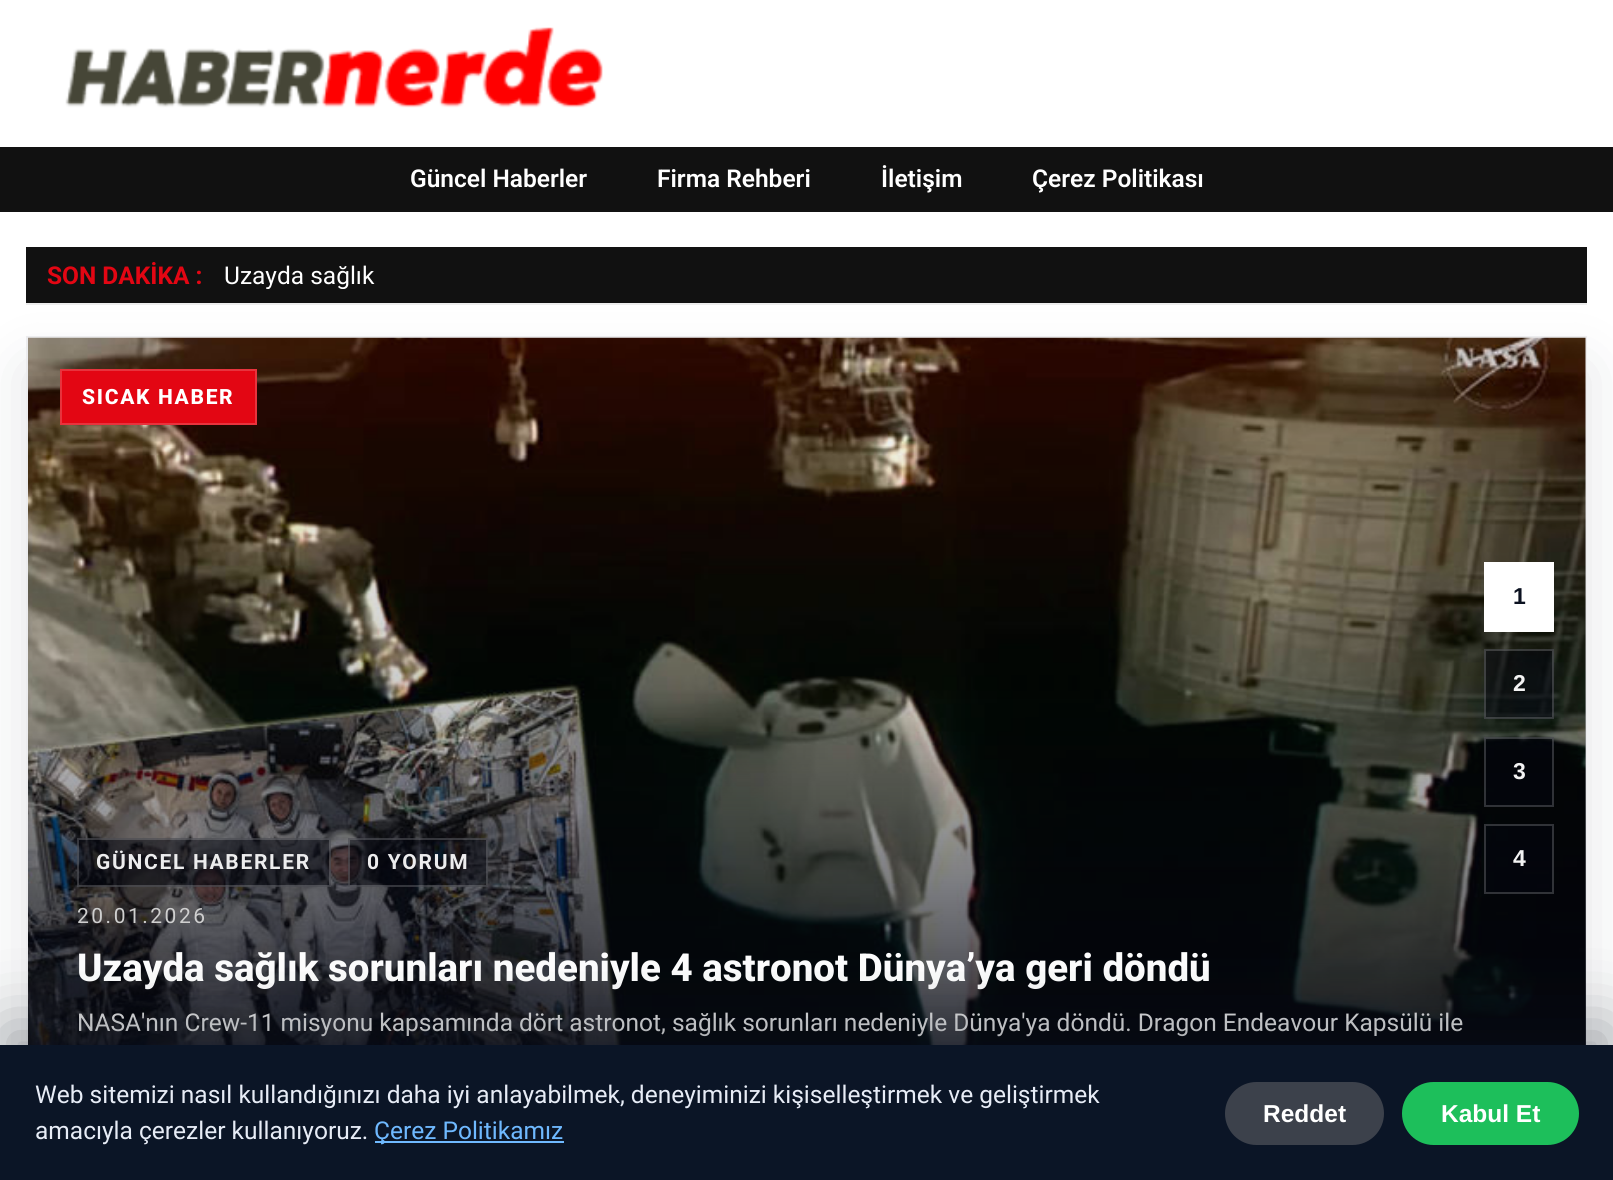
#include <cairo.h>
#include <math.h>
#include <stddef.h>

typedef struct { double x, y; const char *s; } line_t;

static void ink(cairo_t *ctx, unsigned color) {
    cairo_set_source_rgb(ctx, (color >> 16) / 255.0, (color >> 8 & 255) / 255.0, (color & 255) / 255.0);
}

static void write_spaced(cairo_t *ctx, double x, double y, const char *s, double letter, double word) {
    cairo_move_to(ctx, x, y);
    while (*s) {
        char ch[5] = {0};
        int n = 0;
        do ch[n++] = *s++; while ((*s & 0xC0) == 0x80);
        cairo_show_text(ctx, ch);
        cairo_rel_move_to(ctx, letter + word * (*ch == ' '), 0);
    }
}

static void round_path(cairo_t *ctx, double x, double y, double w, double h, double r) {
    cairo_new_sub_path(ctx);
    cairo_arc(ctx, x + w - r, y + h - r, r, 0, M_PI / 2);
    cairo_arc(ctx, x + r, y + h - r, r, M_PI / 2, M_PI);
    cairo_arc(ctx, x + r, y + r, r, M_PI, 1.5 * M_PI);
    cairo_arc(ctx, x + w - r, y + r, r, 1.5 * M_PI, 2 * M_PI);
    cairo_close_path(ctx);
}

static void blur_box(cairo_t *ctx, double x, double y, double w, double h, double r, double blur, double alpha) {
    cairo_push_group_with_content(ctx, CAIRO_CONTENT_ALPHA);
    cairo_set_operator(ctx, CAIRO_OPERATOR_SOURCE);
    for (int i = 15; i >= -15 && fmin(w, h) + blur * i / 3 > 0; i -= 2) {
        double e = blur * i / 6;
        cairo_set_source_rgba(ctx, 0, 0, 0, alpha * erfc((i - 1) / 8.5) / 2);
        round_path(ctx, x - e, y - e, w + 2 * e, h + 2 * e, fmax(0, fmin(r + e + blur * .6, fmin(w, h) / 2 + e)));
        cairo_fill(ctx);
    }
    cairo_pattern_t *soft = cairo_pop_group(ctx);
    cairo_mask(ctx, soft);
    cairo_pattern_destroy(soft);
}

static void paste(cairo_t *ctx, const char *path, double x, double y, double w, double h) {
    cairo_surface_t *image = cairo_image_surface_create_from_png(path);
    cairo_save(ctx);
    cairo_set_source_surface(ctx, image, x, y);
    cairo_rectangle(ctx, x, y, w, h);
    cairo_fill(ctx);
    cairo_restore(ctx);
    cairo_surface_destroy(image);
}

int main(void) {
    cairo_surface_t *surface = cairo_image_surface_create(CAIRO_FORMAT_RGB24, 1613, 1180);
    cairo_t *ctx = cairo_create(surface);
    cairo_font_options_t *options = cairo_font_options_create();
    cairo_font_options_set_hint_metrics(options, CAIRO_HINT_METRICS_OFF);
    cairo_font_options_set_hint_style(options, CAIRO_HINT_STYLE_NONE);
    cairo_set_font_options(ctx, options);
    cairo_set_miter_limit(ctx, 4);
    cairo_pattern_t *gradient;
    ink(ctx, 0xFFFFFF);
    cairo_paint(ctx);
    paste(ctx, "media/1.png", 65, 27, 538, 81);
    ink(ctx, 0x111111);
    cairo_rectangle(ctx, 0, 147, 1613, 65);
    cairo_fill(ctx);
    cairo_select_font_face(ctx, "Roboto SemiBold", CAIRO_FONT_SLANT_NORMAL, CAIRO_FONT_WEIGHT_NORMAL);
    cairo_set_font_size(ctx, 24.5);
    ink(ctx, 0xFFFFFF);
    {
        static const line_t items[] = {
            {410, 187, "Güncel Haberler"},
            {657, 187, "Firma Rehberi"},
            {881, 187, "İletişim"},
            {1032, 187, "Çerez Politikası"},
        };
        for (size_t i = 0; i < sizeof items / sizeof *items; i++) {
            cairo_move_to(ctx, items[i].x, items[i].y);
            cairo_show_text(ctx, items[i].s);
        }
    }
    ink(ctx, 0xEDEDED);
    cairo_rectangle(ctx, 26, 303, 1561, 2);
    cairo_fill(ctx);
    ink(ctx, 0x111111);
    cairo_rectangle(ctx, 26, 247, 1561, 56);
    cairo_fill(ctx);
    cairo_select_font_face(ctx, "Roboto", CAIRO_FONT_SLANT_NORMAL, CAIRO_FONT_WEIGHT_BOLD);
    ink(ctx, 0xE30613);
    cairo_move_to(ctx, 47, 284);
    cairo_show_text(ctx, "SON DAKİKA :");
    cairo_save(ctx);
    cairo_rectangle(ctx, 224, 261, 1342, 28);
    cairo_clip(ctx);
    cairo_select_font_face(ctx, "Roboto", CAIRO_FONT_SLANT_NORMAL, CAIRO_FONT_WEIGHT_NORMAL);
    ink(ctx, 0xFFFFFF);
    cairo_move_to(ctx, 224, 284);
    cairo_show_text(ctx, "Uzayda sağlık");
    cairo_restore(ctx);
    ink(ctx, 0x101828);
    blur_box(ctx, 26, 368, 1561, 782, 0, 30.5, 0.12);
    cairo_rectangle(ctx, 27, 337, 1559, 780);
    ink(ctx, 0xECECEE);
    cairo_stroke(ctx);
    paste(ctx, "media/2.png", 28, 337, 1558, 708);
    gradient = cairo_pattern_create_linear(807, 1117, 807, 338);
    cairo_pattern_add_color_stop_rgba(gradient, 0, 0.02, 0.027, 0.063, 0.92);
    cairo_pattern_add_color_stop_rgba(gradient, 0.55, 0.02, 0.027, 0.063, 0.2);
    cairo_pattern_add_color_stop_rgba(gradient, 1, 0.02, 0.027, 0.063, 0);
    cairo_set_source(ctx, gradient);
    cairo_pattern_destroy(gradient);
    cairo_rectangle(ctx, 28, 376, 1558, 669);
    cairo_fill(ctx);
    ink(ctx, 0xE30613);
    cairo_rectangle(ctx, 61, 370, 195, 54);
    cairo_fill_preserve(ctx);
    ink(ctx, 0xE8333D);
    cairo_stroke(ctx);
    cairo_select_font_face(ctx, "Roboto ExtraBold", CAIRO_FONT_SLANT_NORMAL, CAIRO_FONT_WEIGHT_NORMAL);
    cairo_set_font_size(ctx, 21);
    ink(ctx, 0xFFFFFF);
    write_spaced(ctx, 82, 404, "SICAK HABER", 1.7, 0);
    cairo_set_source_rgba(ctx, 0.02, 0.027, 0.063, 0.55);
    cairo_rectangle(ctx, 77, 838, 254, 49);
    cairo_fill(ctx);
    cairo_rectangle(ctx, 78, 839, 252, 47);
    cairo_set_source_rgba(ctx, 1, 1, 1, 0.18);
    cairo_stroke(ctx);
    cairo_select_font_face(ctx, "Roboto", CAIRO_FONT_SLANT_NORMAL, CAIRO_FONT_WEIGHT_BOLD);
    ink(ctx, 0xEDEDEE);
    write_spaced(ctx, 96, 869, "GÜNCEL HABERLER", 1.7, 0);
    cairo_set_source_rgba(ctx, 0.02, 0.027, 0.063, 0.55);
    cairo_rectangle(ctx, 348, 838, 140, 49);
    cairo_fill(ctx);
    cairo_rectangle(ctx, 349, 839, 138, 47);
    cairo_set_source_rgba(ctx, 1, 1, 1, 0.18);
    cairo_stroke(ctx);
    ink(ctx, 0xEDEDEE);
    write_spaced(ctx, 367, 869, "0 YORUM", 1.7, 0);
    cairo_select_font_face(ctx, "Roboto", CAIRO_FONT_SLANT_NORMAL, CAIRO_FONT_WEIGHT_NORMAL);
    ink(ctx, 0xCFCFCF);
    write_spaced(ctx, 77, 923, "20.01.2026", 2.5, 0);
    cairo_select_font_face(ctx, "Roboto ExtraBold", CAIRO_FONT_SLANT_NORMAL, CAIRO_FONT_WEIGHT_NORMAL);
    cairo_set_font_size(ctx, 38.5);
    ink(ctx, 0xFFFFFF);
    cairo_move_to(ctx, 77, 981);
    cairo_show_text(ctx, "Uzayda sağlık sorunları nedeniyle 4 astronot Dünya’ya geri döndü");
    cairo_select_font_face(ctx, "Roboto", CAIRO_FONT_SLANT_NORMAL, CAIRO_FONT_WEIGHT_NORMAL);
    cairo_set_font_size(ctx, 24.5);
    ink(ctx, 0xE2E2E3);
    cairo_move_to(ctx, 77, 1031);
    cairo_show_text(ctx, "NASA'nın Crew-11 misyonu kapsamında dört astronot, sağlık sorunları nedeniyle Dünya'ya döndü. Dragon Endeavour Kapsülü ile");
    ink(ctx, 0xFFFFFF);
    cairo_rectangle(ctx, 1484, 562, 70, 70);
    cairo_fill(ctx);
    cairo_select_font_face(ctx, "Liberation Sans", CAIRO_FONT_SLANT_NORMAL, CAIRO_FONT_WEIGHT_BOLD);
    cairo_set_font_size(ctx, 23);
    ink(ctx, 0x0B1120);
    cairo_move_to(ctx, 1513, 604);
    cairo_show_text(ctx, "1");
    cairo_set_source_rgba(ctx, 0.02, 0.027, 0.063, 0.55);
    cairo_rectangle(ctx, 1484, 649, 70, 70);
    cairo_fill(ctx);
    cairo_rectangle(ctx, 1485, 650, 68, 68);
    cairo_set_source_rgba(ctx, 1, 1, 1, 0.18);
    cairo_stroke(ctx);
    ink(ctx, 0xF3F3F3);
    cairo_move_to(ctx, 1513, 691);
    cairo_show_text(ctx, "2");
    cairo_set_source_rgba(ctx, 0.02, 0.027, 0.063, 0.55);
    cairo_rectangle(ctx, 1484, 737, 70, 70);
    cairo_fill(ctx);
    cairo_rectangle(ctx, 1485, 738, 68, 68);
    cairo_set_source_rgba(ctx, 1, 1, 1, 0.18);
    cairo_stroke(ctx);
    ink(ctx, 0xF3F3F3);
    cairo_move_to(ctx, 1513, 779);
    cairo_show_text(ctx, "3");
    cairo_set_source_rgba(ctx, 0.02, 0.027, 0.063, 0.55);
    cairo_rectangle(ctx, 1485, 825, 68, 68);
    cairo_fill_preserve(ctx);
    ink(ctx, 0x313338);
    cairo_stroke(ctx);
    ink(ctx, 0xF3F3F3);
    cairo_move_to(ctx, 1513, 866);
    cairo_show_text(ctx, "4");
    ink(ctx, 0x0C1522);
    blur_box(ctx, 0, 1024, 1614, 136, 0, 35, 0.35);
    ink(ctx, 0x0B1526);
    cairo_rectangle(ctx, 0, 1045, 1613, 135);
    cairo_fill(ctx);
    cairo_select_font_face(ctx, "Roboto", CAIRO_FONT_SLANT_NORMAL, CAIRO_FONT_WEIGHT_NORMAL);
    cairo_set_font_size(ctx, 24.5);
    ink(ctx, 0xE7ECF6);
    cairo_move_to(ctx, 35, 1103);
    cairo_show_text(ctx, "Web sitemizi nasıl kullandığınızı daha iyi anlayabilmek, deneyiminizi kişiselleştirmek ve geliştirmek");
    cairo_move_to(ctx, 35, 1139);
    cairo_show_text(ctx, "amacıyla çerezler kullanıyoruz.");
    ink(ctx, 0x6FB9FF);
    cairo_rectangle(ctx, 375, 1141, 189, 2);
    cairo_fill(ctx);
    cairo_move_to(ctx, 374, 1139);
    cairo_show_text(ctx, "Çerez Politikamız");
    ink(ctx, 0x3C414B);
    round_path(ctx, 1225, 1082, 159, 63, 31.5);
    cairo_fill(ctx);
    cairo_select_font_face(ctx, "Liberation Sans", CAIRO_FONT_SLANT_NORMAL, CAIRO_FONT_WEIGHT_BOLD);
    ink(ctx, 0xFFFFFF);
    cairo_move_to(ctx, 1263, 1122);
    cairo_show_text(ctx, "Reddet");
    ink(ctx, 0x1DBF5B);
    round_path(ctx, 1402, 1082, 177, 63, 31.5);
    cairo_fill(ctx);
    ink(ctx, 0xFFFFFF);
    cairo_move_to(ctx, 1441, 1122);
    cairo_show_text(ctx, "Kabul Et");
    cairo_surface_write_to_png(surface, "image.png");
    cairo_font_options_destroy(options);
    cairo_destroy(ctx);
    cairo_surface_destroy(surface);
    return 0;
}
